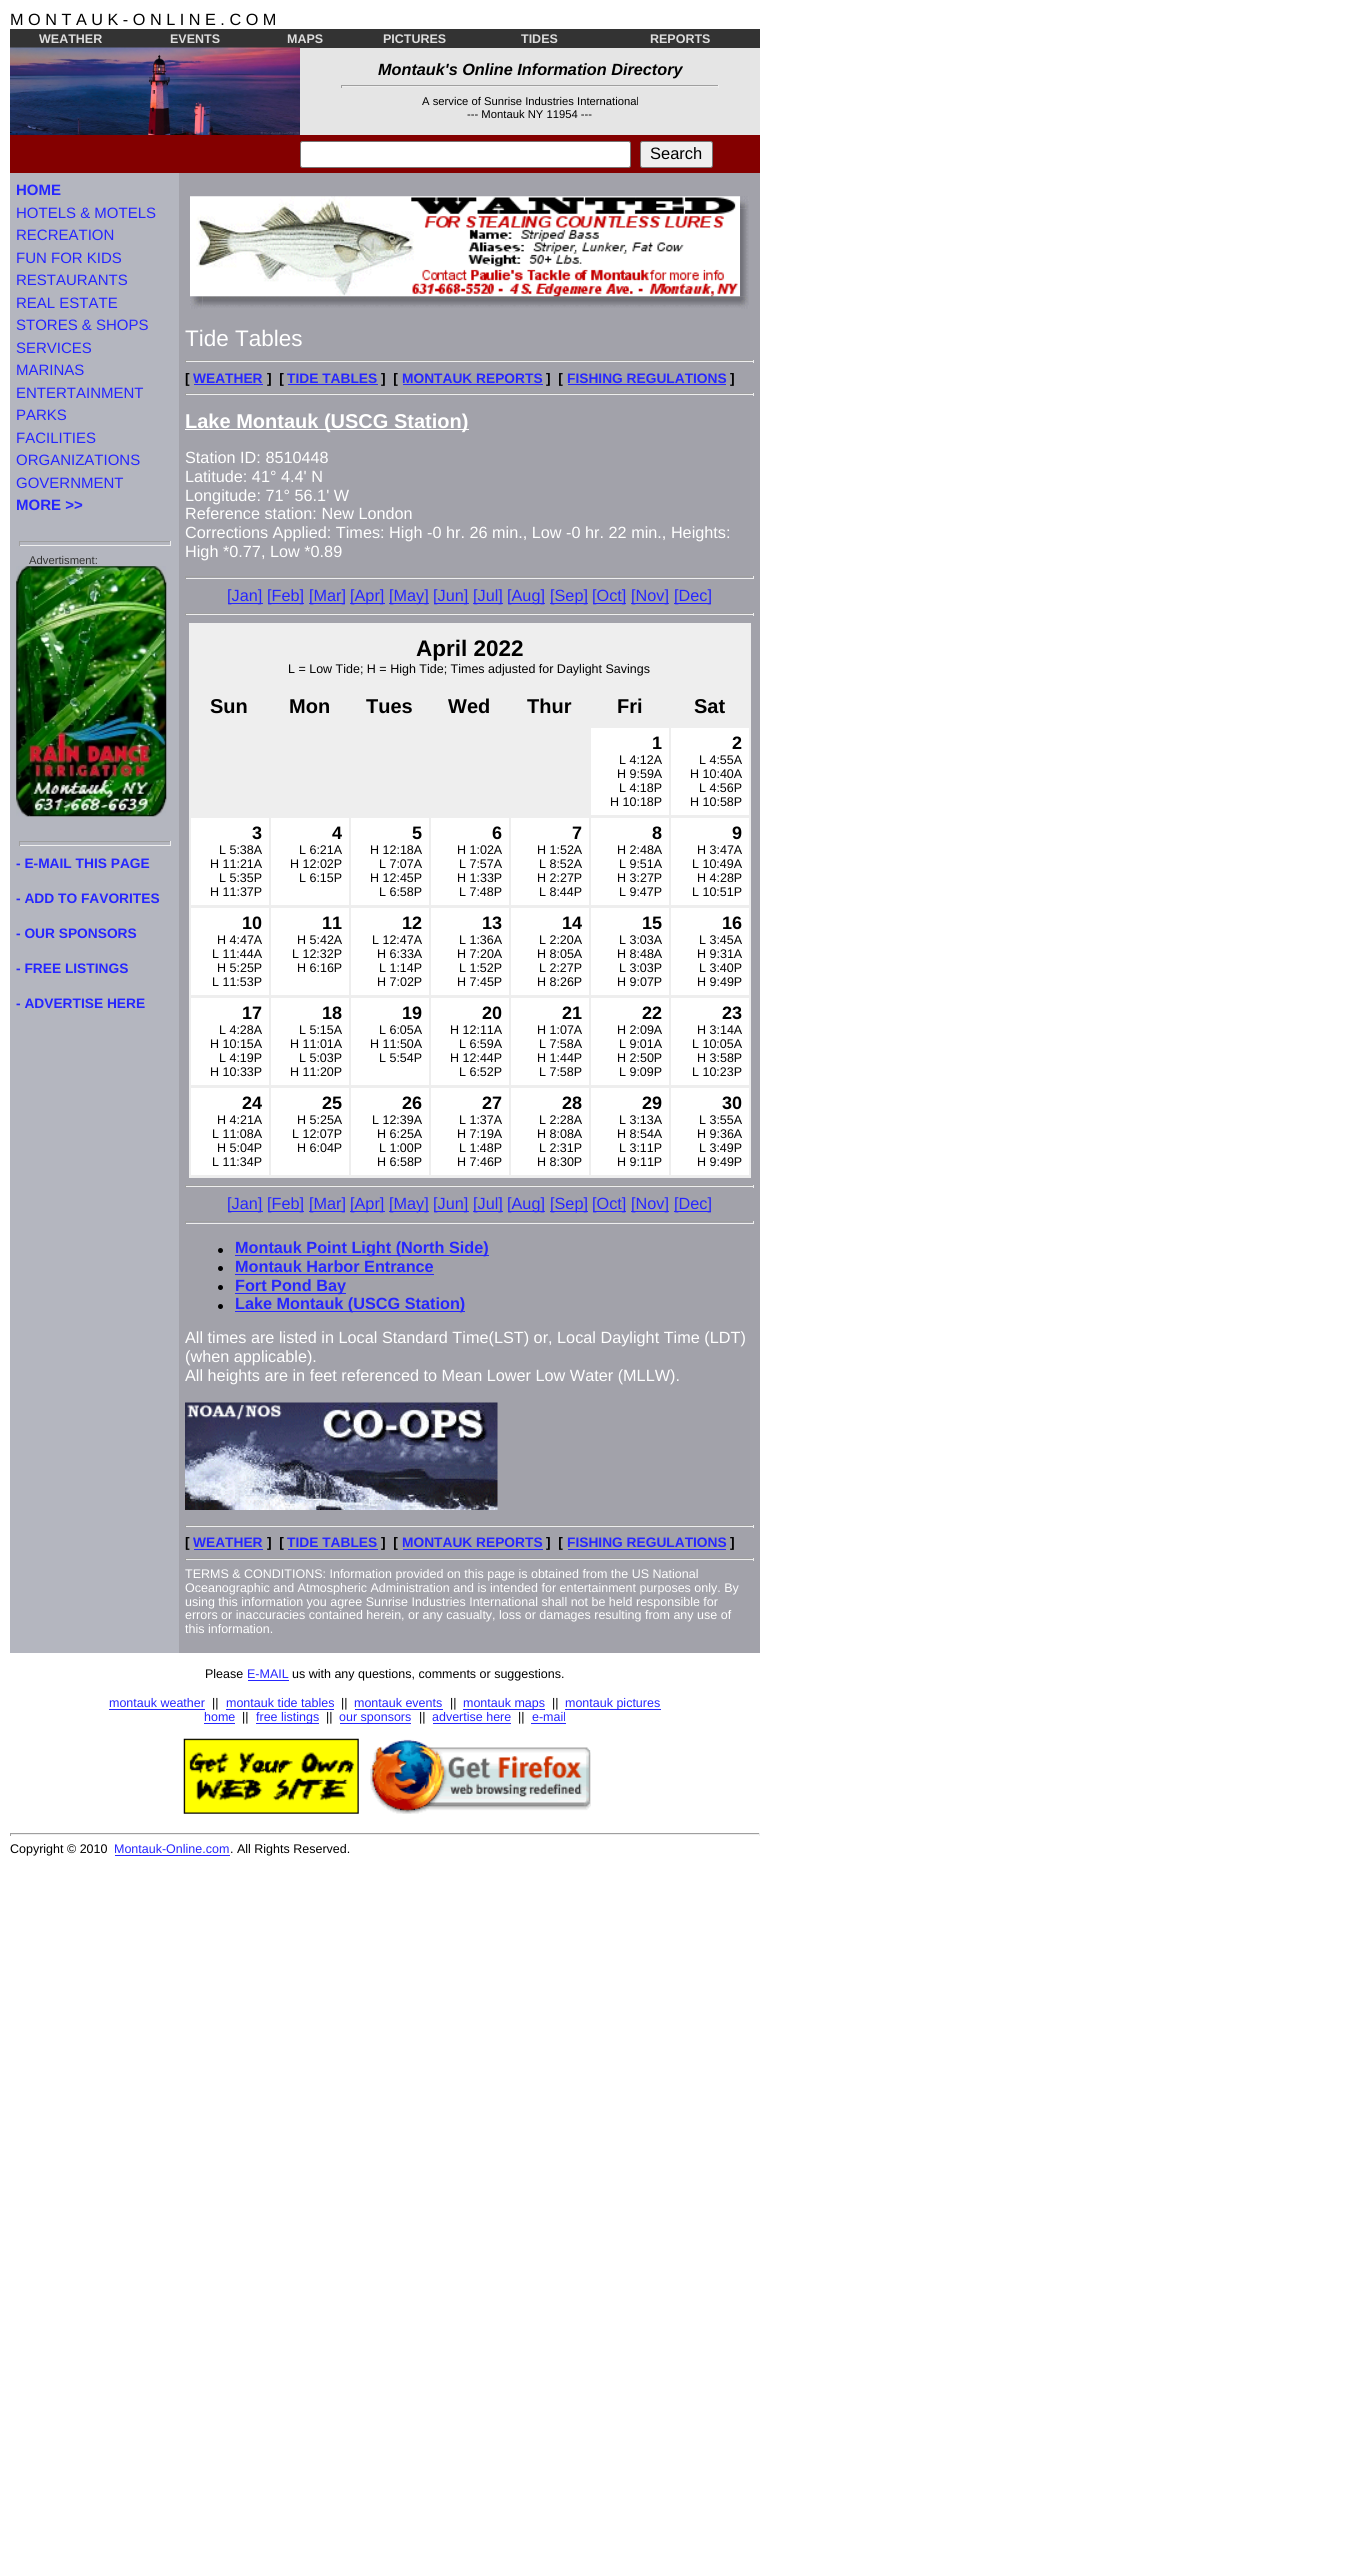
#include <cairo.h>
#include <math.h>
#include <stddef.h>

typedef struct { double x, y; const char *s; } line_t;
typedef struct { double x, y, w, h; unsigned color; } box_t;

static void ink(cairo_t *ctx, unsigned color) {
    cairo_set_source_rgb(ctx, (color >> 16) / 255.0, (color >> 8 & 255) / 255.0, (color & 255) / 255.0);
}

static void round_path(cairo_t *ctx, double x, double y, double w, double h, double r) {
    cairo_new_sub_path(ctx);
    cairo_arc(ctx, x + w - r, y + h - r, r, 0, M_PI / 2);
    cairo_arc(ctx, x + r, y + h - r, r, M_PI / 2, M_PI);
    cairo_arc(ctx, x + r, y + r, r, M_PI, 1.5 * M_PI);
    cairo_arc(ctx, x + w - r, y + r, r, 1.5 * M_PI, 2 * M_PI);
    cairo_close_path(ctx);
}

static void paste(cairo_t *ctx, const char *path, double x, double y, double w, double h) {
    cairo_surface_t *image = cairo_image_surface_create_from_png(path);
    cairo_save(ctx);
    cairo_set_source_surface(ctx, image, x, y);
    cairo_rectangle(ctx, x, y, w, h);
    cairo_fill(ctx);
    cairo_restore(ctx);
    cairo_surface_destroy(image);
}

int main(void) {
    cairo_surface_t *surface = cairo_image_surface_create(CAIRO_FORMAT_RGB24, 1372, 2565);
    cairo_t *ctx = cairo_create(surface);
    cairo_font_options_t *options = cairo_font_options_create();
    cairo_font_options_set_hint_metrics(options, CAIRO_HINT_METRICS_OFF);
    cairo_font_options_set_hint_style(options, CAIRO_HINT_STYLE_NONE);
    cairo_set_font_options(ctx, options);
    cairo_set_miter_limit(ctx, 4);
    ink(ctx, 0xFFFFFF);
    cairo_paint(ctx);
    cairo_select_font_face(ctx, "Liberation Sans", CAIRO_FONT_SLANT_NORMAL, CAIRO_FONT_WEIGHT_NORMAL);
    cairo_set_font_size(ctx, 16.25);
    ink(ctx, 0x000000);
    cairo_move_to(ctx, 10, 25);
    cairo_show_text(ctx, "M O N T A U K - O N L I N E . C O M");
    ink(ctx, 0x333333);
    cairo_rectangle(ctx, 10, 29, 750, 19);
    cairo_fill(ctx);
    cairo_select_font_face(ctx, "Liberation Sans", CAIRO_FONT_SLANT_NORMAL, CAIRO_FONT_WEIGHT_BOLD);
    cairo_set_font_size(ctx, 12.5);
    ink(ctx, 0xDDDDDD);
    {
        static const line_t items[] = {
            {39, 43, "WEATHER"},
            {170, 43, "EVENTS"},
            {287, 43, "MAPS"},
            {383, 43, "PICTURES"},
            {521, 43, "TIDES"},
            {650, 43, "REPORTS"},
        };
        for (size_t i = 0; i < sizeof items / sizeof *items; i++) {
            cairo_move_to(ctx, items[i].x, items[i].y);
            cairo_show_text(ctx, items[i].s);
        }
    }
    paste(ctx, "media/1.png", 10, 47, 290, 88);
    ink(ctx, 0xE5E5E5);
    cairo_rectangle(ctx, 300, 48, 460, 87);
    cairo_fill(ctx);
    cairo_select_font_face(ctx, "Liberation Sans", CAIRO_FONT_SLANT_ITALIC, CAIRO_FONT_WEIGHT_BOLD);
    cairo_set_font_size(ctx, 16.25);
    ink(ctx, 0x000000);
    cairo_move_to(ctx, 378, 75);
    cairo_show_text(ctx, "Montauk's Online Information Directory");
    {
        static const box_t items[] = {
            {341, 85, 378, 1, 0x9F9F9F},
            {718, 85, 1, 3, 0xEEEEEE},
            {341, 86, 378, 1, 0xEEEEEE},
            {341, 85, 1, 3, 0x9F9F9F},
        };
        for (size_t i = 0; i < sizeof items / sizeof *items; i++) {
            ink(ctx, items[i].color);
            cairo_rectangle(ctx, items[i].x, items[i].y, items[i].w, items[i].h);
            cairo_fill(ctx);
        }
    }
    cairo_select_font_face(ctx, "Liberation Sans", CAIRO_FONT_SLANT_NORMAL, CAIRO_FONT_WEIGHT_NORMAL);
    cairo_set_font_size(ctx, 11.25);
    ink(ctx, 0x000000);
    cairo_move_to(ctx, 422, 105);
    cairo_show_text(ctx, "A service of Sunrise Industries International");
    cairo_move_to(ctx, 467, 118);
    cairo_show_text(ctx, "--- Montauk NY 11954 ---");
    ink(ctx, 0x840000);
    cairo_rectangle(ctx, 10, 135, 750, 38);
    cairo_fill(ctx);
    ink(ctx, 0xFFFFFF);
    round_path(ctx, 300.5, 141.5, 330, 26, 2);
    cairo_fill_preserve(ctx);
    ink(ctx, 0x767676);
    cairo_set_line_width(ctx, 1);
    cairo_stroke(ctx);
    ink(ctx, 0xEFEFEF);
    round_path(ctx, 640.5, 141.5, 72, 26, 2);
    cairo_fill_preserve(ctx);
    ink(ctx, 0x767676);
    cairo_stroke(ctx);
    cairo_set_font_size(ctx, 16.5);
    ink(ctx, 0x000000);
    cairo_move_to(ctx, 650, 159);
    cairo_show_text(ctx, "Search");
    ink(ctx, 0xB4B6BF);
    cairo_rectangle(ctx, 10, 173, 169, 1480);
    cairo_fill(ctx);
    cairo_select_font_face(ctx, "Liberation Sans", CAIRO_FONT_SLANT_NORMAL, CAIRO_FONT_WEIGHT_BOLD);
    cairo_set_font_size(ctx, 15);
    ink(ctx, 0x2626FF);
    cairo_move_to(ctx, 16, 195);
    cairo_show_text(ctx, "HOME");
    cairo_select_font_face(ctx, "Liberation Sans", CAIRO_FONT_SLANT_NORMAL, CAIRO_FONT_WEIGHT_NORMAL);
    {
        static const line_t items[] = {
            {16, 218, "HOTELS & MOTELS"},
            {16, 240, "RECREATION"},
            {16, 263, "FUN FOR KIDS"},
            {16, 285, "RESTAURANTS"},
            {16, 308, "REAL ESTATE"},
            {16, 330, "STORES & SHOPS"},
            {16, 353, "SERVICES"},
            {16, 375, "MARINAS"},
            {16, 398, "ENTERTAINMENT"},
            {16, 420, "PARKS"},
            {16, 443, "FACILITIES"},
            {16, 465, "ORGANIZATIONS"},
            {16, 488, "GOVERNMENT"},
        };
        for (size_t i = 0; i < sizeof items / sizeof *items; i++) {
            cairo_move_to(ctx, items[i].x, items[i].y);
            cairo_show_text(ctx, items[i].s);
        }
    }
    cairo_select_font_face(ctx, "Liberation Sans", CAIRO_FONT_SLANT_NORMAL, CAIRO_FONT_WEIGHT_BOLD);
    cairo_move_to(ctx, 16, 510);
    cairo_show_text(ctx, "MORE >>");
    {
        static const box_t items[] = {
            {19, 541, 152, 1, 0x9F9F9F},
            {170, 541, 1, 5, 0xEEEEEE},
            {19, 545, 152, 1, 0xEEEEEE},
            {19, 541, 1, 5, 0x9F9F9F},
        };
        for (size_t i = 0; i < sizeof items / sizeof *items; i++) {
            ink(ctx, items[i].color);
            cairo_rectangle(ctx, items[i].x, items[i].y, items[i].w, items[i].h);
            cairo_fill(ctx);
        }
    }
    cairo_select_font_face(ctx, "Liberation Sans", CAIRO_FONT_SLANT_NORMAL, CAIRO_FONT_WEIGHT_NORMAL);
    cairo_set_font_size(ctx, 11.25);
    ink(ctx, 0x333333);
    cairo_move_to(ctx, 29, 564);
    cairo_show_text(ctx, "Advertisment:");
    paste(ctx, "media/2.png", 16, 566, 151, 251);
    {
        static const box_t items[] = {
            {19, 841, 152, 1, 0x9F9F9F},
            {170, 841, 1, 5, 0xEEEEEE},
            {19, 845, 152, 1, 0xEEEEEE},
            {19, 841, 1, 5, 0x9F9F9F},
        };
        for (size_t i = 0; i < sizeof items / sizeof *items; i++) {
            ink(ctx, items[i].color);
            cairo_rectangle(ctx, items[i].x, items[i].y, items[i].w, items[i].h);
            cairo_fill(ctx);
        }
    }
    cairo_select_font_face(ctx, "Liberation Sans", CAIRO_FONT_SLANT_NORMAL, CAIRO_FONT_WEIGHT_BOLD);
    cairo_set_font_size(ctx, 13.75);
    ink(ctx, 0x2626FF);
    {
        static const line_t items[] = {
            {16, 868, "- E-MAIL THIS PAGE"},
            {16, 903, "- ADD TO FAVORITES"},
            {16, 938, "- OUR SPONSORS"},
            {16, 973, "- FREE LISTINGS"},
            {16, 1008, "- ADVERTISE HERE"},
        };
        for (size_t i = 0; i < sizeof items / sizeof *items; i++) {
            cairo_move_to(ctx, items[i].x, items[i].y);
            cairo_show_text(ctx, items[i].s);
        }
    }
    ink(ctx, 0xA2A2AA);
    cairo_rectangle(ctx, 179, 173, 581, 1480);
    cairo_fill(ctx);
    paste(ctx, "media/6.png", 190, 296, 13, 13);
    paste(ctx, "media/7.png", 202, 296, 538, 12);
    paste(ctx, "media/3.png", 190, 196, 550, 101);
    paste(ctx, "media/4.png", 740, 196, 9, 13);
    paste(ctx, "media/5.png", 740, 209, 9, 88);
    paste(ctx, "media/8.png", 740, 296, 9, 13);
    cairo_select_font_face(ctx, "Liberation Sans", CAIRO_FONT_SLANT_NORMAL, CAIRO_FONT_WEIGHT_NORMAL);
    cairo_set_font_size(ctx, 22.5);
    ink(ctx, 0xFFFFFF);
    cairo_move_to(ctx, 185, 346);
    cairo_show_text(ctx, "Tide Tables");
    {
        static const box_t items[] = {
            {185, 360, 569, 1, 0x9F9F9F},
            {753, 360, 1, 3, 0xEEEEEE},
            {185, 361, 569, 1, 0xEEEEEE},
            {185, 360, 1, 3, 0x9F9F9F},
        };
        for (size_t i = 0; i < sizeof items / sizeof *items; i++) {
            ink(ctx, items[i].color);
            cairo_rectangle(ctx, items[i].x, items[i].y, items[i].w, items[i].h);
            cairo_fill(ctx);
        }
    }
    cairo_select_font_face(ctx, "Liberation Sans", CAIRO_FONT_SLANT_NORMAL, CAIRO_FONT_WEIGHT_BOLD);
    cairo_set_font_size(ctx, 13.75);
    ink(ctx, 0x000000);
    cairo_move_to(ctx, 185, 383);
    cairo_show_text(ctx, "[");
    ink(ctx, 0x2626FF);
    cairo_move_to(ctx, 193, 383);
    cairo_show_text(ctx, "WEATHER");
    cairo_rectangle(ctx, 194, 384, 69, 1);
    cairo_fill(ctx);
    ink(ctx, 0x000000);
    cairo_move_to(ctx, 267, 383);
    cairo_show_text(ctx, "]  [");
    ink(ctx, 0x2626FF);
    cairo_move_to(ctx, 287, 383);
    cairo_show_text(ctx, "TIDE TABLES");
    cairo_rectangle(ctx, 288, 384, 90, 1);
    cairo_fill(ctx);
    ink(ctx, 0x000000);
    cairo_move_to(ctx, 381, 383);
    cairo_show_text(ctx, "]  [");
    ink(ctx, 0x2626FF);
    cairo_move_to(ctx, 402, 383);
    cairo_show_text(ctx, "MONTAUK REPORTS");
    cairo_rectangle(ctx, 403, 384, 140, 1);
    cairo_fill(ctx);
    ink(ctx, 0x000000);
    cairo_move_to(ctx, 546, 383);
    cairo_show_text(ctx, "]  [");
    ink(ctx, 0x2626FF);
    cairo_move_to(ctx, 567, 383);
    cairo_show_text(ctx, "FISHING REGULATIONS");
    cairo_rectangle(ctx, 568, 384, 158, 1);
    cairo_fill(ctx);
    ink(ctx, 0x000000);
    cairo_move_to(ctx, 730, 383);
    cairo_show_text(ctx, "]");
    {
        static const box_t items[] = {
            {185, 393, 569, 1, 0x9F9F9F},
            {753, 393, 1, 3, 0xEEEEEE},
            {185, 394, 569, 1, 0xEEEEEE},
            {185, 393, 1, 3, 0x9F9F9F},
            {185, 429, 284, 1, 0xFFFFFF},
        };
        for (size_t i = 0; i < sizeof items / sizeof *items; i++) {
            ink(ctx, items[i].color);
            cairo_rectangle(ctx, items[i].x, items[i].y, items[i].w, items[i].h);
            cairo_fill(ctx);
        }
    }
    cairo_set_font_size(ctx, 20);
    cairo_move_to(ctx, 185, 428);
    cairo_show_text(ctx, "Lake Montauk (USCG Station)");
    cairo_select_font_face(ctx, "Liberation Sans", CAIRO_FONT_SLANT_NORMAL, CAIRO_FONT_WEIGHT_NORMAL);
    cairo_set_font_size(ctx, 16.25);
    {
        static const line_t items[] = {
            {185, 463, "Station ID: 8510448"},
            {185, 482, "Latitude: 41° 4.4' N"},
            {185, 501, "Longitude: 71° 56.1' W"},
            {185, 519, "Reference station: New London"},
            {185, 538, "Corrections Applied: Times: High -0 hr. 26 min., Low -0 hr. 22 min., Heights:"},
            {185, 557, "High *0.77, Low *0.89"},
        };
        for (size_t i = 0; i < sizeof items / sizeof *items; i++) {
            cairo_move_to(ctx, items[i].x, items[i].y);
            cairo_show_text(ctx, items[i].s);
        }
    }
    {
        static const box_t items[] = {
            {185, 576, 569, 1, 0x9F9F9F},
            {753, 576, 1, 3, 0xEEEEEE},
            {185, 578, 569, 1, 0xEEEEEE},
            {185, 576, 1, 3, 0x9F9F9F},
            {228, 603, 35, 1, 0x2626FF},
        };
        for (size_t i = 0; i < sizeof items / sizeof *items; i++) {
            ink(ctx, items[i].color);
            cairo_rectangle(ctx, items[i].x, items[i].y, items[i].w, items[i].h);
            cairo_fill(ctx);
        }
    }
    cairo_move_to(ctx, 227, 601);
    cairo_show_text(ctx, "[Jan]");
    cairo_rectangle(ctx, 268, 603, 36, 1);
    cairo_fill(ctx);
    cairo_move_to(ctx, 267, 601);
    cairo_show_text(ctx, "[Feb]");
    cairo_rectangle(ctx, 309, 603, 36, 1);
    cairo_fill(ctx);
    cairo_move_to(ctx, 309, 601);
    cairo_show_text(ctx, "[Mar]");
    cairo_rectangle(ctx, 350, 603, 35, 1);
    cairo_fill(ctx);
    cairo_move_to(ctx, 350, 601);
    cairo_show_text(ctx, "[Apr]");
    cairo_rectangle(ctx, 389, 603, 40, 1);
    cairo_fill(ctx);
    cairo_move_to(ctx, 389, 601);
    cairo_show_text(ctx, "[May]");
    cairo_rectangle(ctx, 434, 603, 35, 1);
    cairo_fill(ctx);
    cairo_move_to(ctx, 433, 601);
    cairo_show_text(ctx, "[Jun]");
    cairo_rectangle(ctx, 473, 603, 30, 1);
    cairo_fill(ctx);
    cairo_move_to(ctx, 473, 601);
    cairo_show_text(ctx, "[Jul]");
    cairo_rectangle(ctx, 508, 603, 37, 1);
    cairo_fill(ctx);
    cairo_move_to(ctx, 507, 601);
    cairo_show_text(ctx, "[Aug]");
    cairo_rectangle(ctx, 550, 603, 38, 1);
    cairo_fill(ctx);
    cairo_move_to(ctx, 550, 601);
    cairo_show_text(ctx, "[Sep]");
    cairo_rectangle(ctx, 593, 603, 33, 1);
    cairo_fill(ctx);
    cairo_move_to(ctx, 592, 601);
    cairo_show_text(ctx, "[Oct]");
    cairo_rectangle(ctx, 631, 603, 38, 1);
    cairo_fill(ctx);
    cairo_move_to(ctx, 631, 601);
    cairo_show_text(ctx, "[Nov]");
    cairo_rectangle(ctx, 674, 603, 37, 1);
    cairo_fill(ctx);
    cairo_move_to(ctx, 674, 601);
    cairo_show_text(ctx, "[Dec]");
    {
        static const box_t items[] = {
            {185, 613, 569, 1, 0x9F9F9F},
            {753, 613, 1, 3, 0xEEEEEE},
            {185, 614, 569, 1, 0xEEEEEE},
            {185, 613, 1, 3, 0x9F9F9F},
            {189, 623, 562, 555, 0xEEEEEE},
        };
        for (size_t i = 0; i < sizeof items / sizeof *items; i++) {
            ink(ctx, items[i].color);
            cairo_rectangle(ctx, items[i].x, items[i].y, items[i].w, items[i].h);
            cairo_fill(ctx);
        }
    }
    cairo_select_font_face(ctx, "Liberation Sans", CAIRO_FONT_SLANT_NORMAL, CAIRO_FONT_WEIGHT_BOLD);
    cairo_set_font_size(ctx, 22.5);
    ink(ctx, 0x000000);
    cairo_move_to(ctx, 416, 656);
    cairo_show_text(ctx, "April 2022");
    cairo_select_font_face(ctx, "Liberation Sans", CAIRO_FONT_SLANT_NORMAL, CAIRO_FONT_WEIGHT_NORMAL);
    cairo_set_font_size(ctx, 12.5);
    cairo_move_to(ctx, 288, 673);
    cairo_show_text(ctx, "L = Low Tide; H = High Tide; Times adjusted for Daylight Savings");
    cairo_select_font_face(ctx, "Liberation Sans", CAIRO_FONT_SLANT_NORMAL, CAIRO_FONT_WEIGHT_BOLD);
    cairo_set_font_size(ctx, 20);
    {
        static const line_t items[] = {
            {210, 713, "Sun"},
            {289, 713, "Mon"},
            {366, 713, "Tues"},
            {448, 713, "Wed"},
            {527, 713, "Thur"},
            {617, 713, "Fri"},
            {694, 713, "Sat"},
        };
        for (size_t i = 0; i < sizeof items / sizeof *items; i++) {
            cairo_move_to(ctx, items[i].x, items[i].y);
            cairo_show_text(ctx, items[i].s);
        }
    }
    ink(ctx, 0xFFFFFF);
    cairo_rectangle(ctx, 591, 728, 78, 87);
    cairo_fill(ctx);
    cairo_set_font_size(ctx, 18);
    ink(ctx, 0x000000);
    cairo_move_to(ctx, 652, 749);
    cairo_show_text(ctx, "1");
    cairo_select_font_face(ctx, "Liberation Sans", CAIRO_FONT_SLANT_NORMAL, CAIRO_FONT_WEIGHT_NORMAL);
    cairo_set_font_size(ctx, 12.5);
    {
        static const line_t items[] = {
            {619, 764, "L 4:12A"},
            {617, 778, "H 9:59A"},
            {619, 792, "L 4:18P"},
            {610, 806, "H 10:18P"},
        };
        for (size_t i = 0; i < sizeof items / sizeof *items; i++) {
            cairo_move_to(ctx, items[i].x, items[i].y);
            cairo_show_text(ctx, items[i].s);
        }
    }
    ink(ctx, 0xFFFFFF);
    cairo_rectangle(ctx, 671, 728, 78, 87);
    cairo_fill(ctx);
    cairo_select_font_face(ctx, "Liberation Sans", CAIRO_FONT_SLANT_NORMAL, CAIRO_FONT_WEIGHT_BOLD);
    cairo_set_font_size(ctx, 18);
    ink(ctx, 0x000000);
    cairo_move_to(ctx, 732, 749);
    cairo_show_text(ctx, "2");
    cairo_select_font_face(ctx, "Liberation Sans", CAIRO_FONT_SLANT_NORMAL, CAIRO_FONT_WEIGHT_NORMAL);
    cairo_set_font_size(ctx, 12.5);
    {
        static const line_t items[] = {
            {699, 764, "L 4:55A"},
            {690, 778, "H 10:40A"},
            {699, 792, "L 4:56P"},
            {690, 806, "H 10:58P"},
        };
        for (size_t i = 0; i < sizeof items / sizeof *items; i++) {
            cairo_move_to(ctx, items[i].x, items[i].y);
            cairo_show_text(ctx, items[i].s);
        }
    }
    ink(ctx, 0xFFFFFF);
    cairo_rectangle(ctx, 191, 818, 78, 87);
    cairo_fill(ctx);
    cairo_select_font_face(ctx, "Liberation Sans", CAIRO_FONT_SLANT_NORMAL, CAIRO_FONT_WEIGHT_BOLD);
    cairo_set_font_size(ctx, 18);
    ink(ctx, 0x000000);
    cairo_move_to(ctx, 252, 839);
    cairo_show_text(ctx, "3");
    cairo_select_font_face(ctx, "Liberation Sans", CAIRO_FONT_SLANT_NORMAL, CAIRO_FONT_WEIGHT_NORMAL);
    cairo_set_font_size(ctx, 12.5);
    {
        static const line_t items[] = {
            {219, 854, "L 5:38A"},
            {210, 868, "H 11:21A"},
            {219, 882, "L 5:35P"},
            {210, 896, "H 11:37P"},
        };
        for (size_t i = 0; i < sizeof items / sizeof *items; i++) {
            cairo_move_to(ctx, items[i].x, items[i].y);
            cairo_show_text(ctx, items[i].s);
        }
    }
    ink(ctx, 0xFFFFFF);
    cairo_rectangle(ctx, 271, 818, 78, 87);
    cairo_fill(ctx);
    cairo_select_font_face(ctx, "Liberation Sans", CAIRO_FONT_SLANT_NORMAL, CAIRO_FONT_WEIGHT_BOLD);
    cairo_set_font_size(ctx, 18);
    ink(ctx, 0x000000);
    cairo_move_to(ctx, 332, 839);
    cairo_show_text(ctx, "4");
    cairo_select_font_face(ctx, "Liberation Sans", CAIRO_FONT_SLANT_NORMAL, CAIRO_FONT_WEIGHT_NORMAL);
    cairo_set_font_size(ctx, 12.5);
    {
        static const line_t items[] = {
            {299, 854, "L 6:21A"},
            {290, 868, "H 12:02P"},
            {299, 882, "L 6:15P"},
        };
        for (size_t i = 0; i < sizeof items / sizeof *items; i++) {
            cairo_move_to(ctx, items[i].x, items[i].y);
            cairo_show_text(ctx, items[i].s);
        }
    }
    ink(ctx, 0xFFFFFF);
    cairo_rectangle(ctx, 351, 818, 78, 87);
    cairo_fill(ctx);
    cairo_select_font_face(ctx, "Liberation Sans", CAIRO_FONT_SLANT_NORMAL, CAIRO_FONT_WEIGHT_BOLD);
    cairo_set_font_size(ctx, 18);
    ink(ctx, 0x000000);
    cairo_move_to(ctx, 412, 839);
    cairo_show_text(ctx, "5");
    cairo_select_font_face(ctx, "Liberation Sans", CAIRO_FONT_SLANT_NORMAL, CAIRO_FONT_WEIGHT_NORMAL);
    cairo_set_font_size(ctx, 12.5);
    {
        static const line_t items[] = {
            {370, 854, "H 12:18A"},
            {379, 868, "L 7:07A"},
            {370, 882, "H 12:45P"},
            {379, 896, "L 6:58P"},
        };
        for (size_t i = 0; i < sizeof items / sizeof *items; i++) {
            cairo_move_to(ctx, items[i].x, items[i].y);
            cairo_show_text(ctx, items[i].s);
        }
    }
    ink(ctx, 0xFFFFFF);
    cairo_rectangle(ctx, 431, 818, 78, 87);
    cairo_fill(ctx);
    cairo_select_font_face(ctx, "Liberation Sans", CAIRO_FONT_SLANT_NORMAL, CAIRO_FONT_WEIGHT_BOLD);
    cairo_set_font_size(ctx, 18);
    ink(ctx, 0x000000);
    cairo_move_to(ctx, 492, 839);
    cairo_show_text(ctx, "6");
    cairo_select_font_face(ctx, "Liberation Sans", CAIRO_FONT_SLANT_NORMAL, CAIRO_FONT_WEIGHT_NORMAL);
    cairo_set_font_size(ctx, 12.5);
    {
        static const line_t items[] = {
            {457, 854, "H 1:02A"},
            {459, 868, "L 7:57A"},
            {457, 882, "H 1:33P"},
            {459, 896, "L 7:48P"},
        };
        for (size_t i = 0; i < sizeof items / sizeof *items; i++) {
            cairo_move_to(ctx, items[i].x, items[i].y);
            cairo_show_text(ctx, items[i].s);
        }
    }
    ink(ctx, 0xFFFFFF);
    cairo_rectangle(ctx, 511, 818, 78, 87);
    cairo_fill(ctx);
    cairo_select_font_face(ctx, "Liberation Sans", CAIRO_FONT_SLANT_NORMAL, CAIRO_FONT_WEIGHT_BOLD);
    cairo_set_font_size(ctx, 18);
    ink(ctx, 0x000000);
    cairo_move_to(ctx, 572, 839);
    cairo_show_text(ctx, "7");
    cairo_select_font_face(ctx, "Liberation Sans", CAIRO_FONT_SLANT_NORMAL, CAIRO_FONT_WEIGHT_NORMAL);
    cairo_set_font_size(ctx, 12.5);
    {
        static const line_t items[] = {
            {537, 854, "H 1:52A"},
            {539, 868, "L 8:52A"},
            {537, 882, "H 2:27P"},
            {539, 896, "L 8:44P"},
        };
        for (size_t i = 0; i < sizeof items / sizeof *items; i++) {
            cairo_move_to(ctx, items[i].x, items[i].y);
            cairo_show_text(ctx, items[i].s);
        }
    }
    ink(ctx, 0xFFFFFF);
    cairo_rectangle(ctx, 591, 818, 78, 87);
    cairo_fill(ctx);
    cairo_select_font_face(ctx, "Liberation Sans", CAIRO_FONT_SLANT_NORMAL, CAIRO_FONT_WEIGHT_BOLD);
    cairo_set_font_size(ctx, 18);
    ink(ctx, 0x000000);
    cairo_move_to(ctx, 652, 839);
    cairo_show_text(ctx, "8");
    cairo_select_font_face(ctx, "Liberation Sans", CAIRO_FONT_SLANT_NORMAL, CAIRO_FONT_WEIGHT_NORMAL);
    cairo_set_font_size(ctx, 12.5);
    {
        static const line_t items[] = {
            {617, 854, "H 2:48A"},
            {619, 868, "L 9:51A"},
            {617, 882, "H 3:27P"},
            {619, 896, "L 9:47P"},
        };
        for (size_t i = 0; i < sizeof items / sizeof *items; i++) {
            cairo_move_to(ctx, items[i].x, items[i].y);
            cairo_show_text(ctx, items[i].s);
        }
    }
    ink(ctx, 0xFFFFFF);
    cairo_rectangle(ctx, 671, 818, 78, 87);
    cairo_fill(ctx);
    cairo_select_font_face(ctx, "Liberation Sans", CAIRO_FONT_SLANT_NORMAL, CAIRO_FONT_WEIGHT_BOLD);
    cairo_set_font_size(ctx, 18);
    ink(ctx, 0x000000);
    cairo_move_to(ctx, 732, 839);
    cairo_show_text(ctx, "9");
    cairo_select_font_face(ctx, "Liberation Sans", CAIRO_FONT_SLANT_NORMAL, CAIRO_FONT_WEIGHT_NORMAL);
    cairo_set_font_size(ctx, 12.5);
    {
        static const line_t items[] = {
            {697, 854, "H 3:47A"},
            {692, 868, "L 10:49A"},
            {697, 882, "H 4:28P"},
            {692, 896, "L 10:51P"},
        };
        for (size_t i = 0; i < sizeof items / sizeof *items; i++) {
            cairo_move_to(ctx, items[i].x, items[i].y);
            cairo_show_text(ctx, items[i].s);
        }
    }
    ink(ctx, 0xFFFFFF);
    cairo_rectangle(ctx, 191, 908, 78, 87);
    cairo_fill(ctx);
    cairo_select_font_face(ctx, "Liberation Sans", CAIRO_FONT_SLANT_NORMAL, CAIRO_FONT_WEIGHT_BOLD);
    cairo_set_font_size(ctx, 18);
    ink(ctx, 0x000000);
    cairo_move_to(ctx, 242, 929);
    cairo_show_text(ctx, "10");
    cairo_select_font_face(ctx, "Liberation Sans", CAIRO_FONT_SLANT_NORMAL, CAIRO_FONT_WEIGHT_NORMAL);
    cairo_set_font_size(ctx, 12.5);
    {
        static const line_t items[] = {
            {217, 944, "H 4:47A"},
            {212, 958, "L 11:44A"},
            {217, 972, "H 5:25P"},
            {212, 986, "L 11:53P"},
        };
        for (size_t i = 0; i < sizeof items / sizeof *items; i++) {
            cairo_move_to(ctx, items[i].x, items[i].y);
            cairo_show_text(ctx, items[i].s);
        }
    }
    ink(ctx, 0xFFFFFF);
    cairo_rectangle(ctx, 271, 908, 78, 87);
    cairo_fill(ctx);
    cairo_select_font_face(ctx, "Liberation Sans", CAIRO_FONT_SLANT_NORMAL, CAIRO_FONT_WEIGHT_BOLD);
    cairo_set_font_size(ctx, 18);
    ink(ctx, 0x000000);
    cairo_move_to(ctx, 322, 929);
    cairo_show_text(ctx, "11");
    cairo_select_font_face(ctx, "Liberation Sans", CAIRO_FONT_SLANT_NORMAL, CAIRO_FONT_WEIGHT_NORMAL);
    cairo_set_font_size(ctx, 12.5);
    {
        static const line_t items[] = {
            {297, 944, "H 5:42A"},
            {292, 958, "L 12:32P"},
            {297, 972, "H 6:16P"},
        };
        for (size_t i = 0; i < sizeof items / sizeof *items; i++) {
            cairo_move_to(ctx, items[i].x, items[i].y);
            cairo_show_text(ctx, items[i].s);
        }
    }
    ink(ctx, 0xFFFFFF);
    cairo_rectangle(ctx, 351, 908, 78, 87);
    cairo_fill(ctx);
    cairo_select_font_face(ctx, "Liberation Sans", CAIRO_FONT_SLANT_NORMAL, CAIRO_FONT_WEIGHT_BOLD);
    cairo_set_font_size(ctx, 18);
    ink(ctx, 0x000000);
    cairo_move_to(ctx, 402, 929);
    cairo_show_text(ctx, "12");
    cairo_select_font_face(ctx, "Liberation Sans", CAIRO_FONT_SLANT_NORMAL, CAIRO_FONT_WEIGHT_NORMAL);
    cairo_set_font_size(ctx, 12.5);
    {
        static const line_t items[] = {
            {372, 944, "L 12:47A"},
            {377, 958, "H 6:33A"},
            {379, 972, "L 1:14P"},
            {377, 986, "H 7:02P"},
        };
        for (size_t i = 0; i < sizeof items / sizeof *items; i++) {
            cairo_move_to(ctx, items[i].x, items[i].y);
            cairo_show_text(ctx, items[i].s);
        }
    }
    ink(ctx, 0xFFFFFF);
    cairo_rectangle(ctx, 431, 908, 78, 87);
    cairo_fill(ctx);
    cairo_select_font_face(ctx, "Liberation Sans", CAIRO_FONT_SLANT_NORMAL, CAIRO_FONT_WEIGHT_BOLD);
    cairo_set_font_size(ctx, 18);
    ink(ctx, 0x000000);
    cairo_move_to(ctx, 482, 929);
    cairo_show_text(ctx, "13");
    cairo_select_font_face(ctx, "Liberation Sans", CAIRO_FONT_SLANT_NORMAL, CAIRO_FONT_WEIGHT_NORMAL);
    cairo_set_font_size(ctx, 12.5);
    {
        static const line_t items[] = {
            {459, 944, "L 1:36A"},
            {457, 958, "H 7:20A"},
            {459, 972, "L 1:52P"},
            {457, 986, "H 7:45P"},
        };
        for (size_t i = 0; i < sizeof items / sizeof *items; i++) {
            cairo_move_to(ctx, items[i].x, items[i].y);
            cairo_show_text(ctx, items[i].s);
        }
    }
    ink(ctx, 0xFFFFFF);
    cairo_rectangle(ctx, 511, 908, 78, 87);
    cairo_fill(ctx);
    cairo_select_font_face(ctx, "Liberation Sans", CAIRO_FONT_SLANT_NORMAL, CAIRO_FONT_WEIGHT_BOLD);
    cairo_set_font_size(ctx, 18);
    ink(ctx, 0x000000);
    cairo_move_to(ctx, 562, 929);
    cairo_show_text(ctx, "14");
    cairo_select_font_face(ctx, "Liberation Sans", CAIRO_FONT_SLANT_NORMAL, CAIRO_FONT_WEIGHT_NORMAL);
    cairo_set_font_size(ctx, 12.5);
    {
        static const line_t items[] = {
            {539, 944, "L 2:20A"},
            {537, 958, "H 8:05A"},
            {539, 972, "L 2:27P"},
            {537, 986, "H 8:26P"},
        };
        for (size_t i = 0; i < sizeof items / sizeof *items; i++) {
            cairo_move_to(ctx, items[i].x, items[i].y);
            cairo_show_text(ctx, items[i].s);
        }
    }
    ink(ctx, 0xFFFFFF);
    cairo_rectangle(ctx, 591, 908, 78, 87);
    cairo_fill(ctx);
    cairo_select_font_face(ctx, "Liberation Sans", CAIRO_FONT_SLANT_NORMAL, CAIRO_FONT_WEIGHT_BOLD);
    cairo_set_font_size(ctx, 18);
    ink(ctx, 0x000000);
    cairo_move_to(ctx, 642, 929);
    cairo_show_text(ctx, "15");
    cairo_select_font_face(ctx, "Liberation Sans", CAIRO_FONT_SLANT_NORMAL, CAIRO_FONT_WEIGHT_NORMAL);
    cairo_set_font_size(ctx, 12.5);
    {
        static const line_t items[] = {
            {619, 944, "L 3:03A"},
            {617, 958, "H 8:48A"},
            {619, 972, "L 3:03P"},
            {617, 986, "H 9:07P"},
        };
        for (size_t i = 0; i < sizeof items / sizeof *items; i++) {
            cairo_move_to(ctx, items[i].x, items[i].y);
            cairo_show_text(ctx, items[i].s);
        }
    }
    ink(ctx, 0xFFFFFF);
    cairo_rectangle(ctx, 671, 908, 78, 87);
    cairo_fill(ctx);
    cairo_select_font_face(ctx, "Liberation Sans", CAIRO_FONT_SLANT_NORMAL, CAIRO_FONT_WEIGHT_BOLD);
    cairo_set_font_size(ctx, 18);
    ink(ctx, 0x000000);
    cairo_move_to(ctx, 722, 929);
    cairo_show_text(ctx, "16");
    cairo_select_font_face(ctx, "Liberation Sans", CAIRO_FONT_SLANT_NORMAL, CAIRO_FONT_WEIGHT_NORMAL);
    cairo_set_font_size(ctx, 12.5);
    {
        static const line_t items[] = {
            {699, 944, "L 3:45A"},
            {697, 958, "H 9:31A"},
            {699, 972, "L 3:40P"},
            {697, 986, "H 9:49P"},
        };
        for (size_t i = 0; i < sizeof items / sizeof *items; i++) {
            cairo_move_to(ctx, items[i].x, items[i].y);
            cairo_show_text(ctx, items[i].s);
        }
    }
    ink(ctx, 0xFFFFFF);
    cairo_rectangle(ctx, 191, 998, 78, 87);
    cairo_fill(ctx);
    cairo_select_font_face(ctx, "Liberation Sans", CAIRO_FONT_SLANT_NORMAL, CAIRO_FONT_WEIGHT_BOLD);
    cairo_set_font_size(ctx, 18);
    ink(ctx, 0x000000);
    cairo_move_to(ctx, 242, 1019);
    cairo_show_text(ctx, "17");
    cairo_select_font_face(ctx, "Liberation Sans", CAIRO_FONT_SLANT_NORMAL, CAIRO_FONT_WEIGHT_NORMAL);
    cairo_set_font_size(ctx, 12.5);
    {
        static const line_t items[] = {
            {219, 1034, "L 4:28A"},
            {210, 1048, "H 10:15A"},
            {219, 1062, "L 4:19P"},
            {210, 1076, "H 10:33P"},
        };
        for (size_t i = 0; i < sizeof items / sizeof *items; i++) {
            cairo_move_to(ctx, items[i].x, items[i].y);
            cairo_show_text(ctx, items[i].s);
        }
    }
    ink(ctx, 0xFFFFFF);
    cairo_rectangle(ctx, 271, 998, 78, 87);
    cairo_fill(ctx);
    cairo_select_font_face(ctx, "Liberation Sans", CAIRO_FONT_SLANT_NORMAL, CAIRO_FONT_WEIGHT_BOLD);
    cairo_set_font_size(ctx, 18);
    ink(ctx, 0x000000);
    cairo_move_to(ctx, 322, 1019);
    cairo_show_text(ctx, "18");
    cairo_select_font_face(ctx, "Liberation Sans", CAIRO_FONT_SLANT_NORMAL, CAIRO_FONT_WEIGHT_NORMAL);
    cairo_set_font_size(ctx, 12.5);
    {
        static const line_t items[] = {
            {299, 1034, "L 5:15A"},
            {290, 1048, "H 11:01A"},
            {299, 1062, "L 5:03P"},
            {290, 1076, "H 11:20P"},
        };
        for (size_t i = 0; i < sizeof items / sizeof *items; i++) {
            cairo_move_to(ctx, items[i].x, items[i].y);
            cairo_show_text(ctx, items[i].s);
        }
    }
    ink(ctx, 0xFFFFFF);
    cairo_rectangle(ctx, 351, 998, 78, 87);
    cairo_fill(ctx);
    cairo_select_font_face(ctx, "Liberation Sans", CAIRO_FONT_SLANT_NORMAL, CAIRO_FONT_WEIGHT_BOLD);
    cairo_set_font_size(ctx, 18);
    ink(ctx, 0x000000);
    cairo_move_to(ctx, 402, 1019);
    cairo_show_text(ctx, "19");
    cairo_select_font_face(ctx, "Liberation Sans", CAIRO_FONT_SLANT_NORMAL, CAIRO_FONT_WEIGHT_NORMAL);
    cairo_set_font_size(ctx, 12.5);
    {
        static const line_t items[] = {
            {379, 1034, "L 6:05A"},
            {370, 1048, "H 11:50A"},
            {379, 1062, "L 5:54P"},
        };
        for (size_t i = 0; i < sizeof items / sizeof *items; i++) {
            cairo_move_to(ctx, items[i].x, items[i].y);
            cairo_show_text(ctx, items[i].s);
        }
    }
    ink(ctx, 0xFFFFFF);
    cairo_rectangle(ctx, 431, 998, 78, 87);
    cairo_fill(ctx);
    cairo_select_font_face(ctx, "Liberation Sans", CAIRO_FONT_SLANT_NORMAL, CAIRO_FONT_WEIGHT_BOLD);
    cairo_set_font_size(ctx, 18);
    ink(ctx, 0x000000);
    cairo_move_to(ctx, 482, 1019);
    cairo_show_text(ctx, "20");
    cairo_select_font_face(ctx, "Liberation Sans", CAIRO_FONT_SLANT_NORMAL, CAIRO_FONT_WEIGHT_NORMAL);
    cairo_set_font_size(ctx, 12.5);
    {
        static const line_t items[] = {
            {450, 1034, "H 12:11A"},
            {459, 1048, "L 6:59A"},
            {450, 1062, "H 12:44P"},
            {459, 1076, "L 6:52P"},
        };
        for (size_t i = 0; i < sizeof items / sizeof *items; i++) {
            cairo_move_to(ctx, items[i].x, items[i].y);
            cairo_show_text(ctx, items[i].s);
        }
    }
    ink(ctx, 0xFFFFFF);
    cairo_rectangle(ctx, 511, 998, 78, 87);
    cairo_fill(ctx);
    cairo_select_font_face(ctx, "Liberation Sans", CAIRO_FONT_SLANT_NORMAL, CAIRO_FONT_WEIGHT_BOLD);
    cairo_set_font_size(ctx, 18);
    ink(ctx, 0x000000);
    cairo_move_to(ctx, 562, 1019);
    cairo_show_text(ctx, "21");
    cairo_select_font_face(ctx, "Liberation Sans", CAIRO_FONT_SLANT_NORMAL, CAIRO_FONT_WEIGHT_NORMAL);
    cairo_set_font_size(ctx, 12.5);
    {
        static const line_t items[] = {
            {537, 1034, "H 1:07A"},
            {539, 1048, "L 7:58A"},
            {537, 1062, "H 1:44P"},
            {539, 1076, "L 7:58P"},
        };
        for (size_t i = 0; i < sizeof items / sizeof *items; i++) {
            cairo_move_to(ctx, items[i].x, items[i].y);
            cairo_show_text(ctx, items[i].s);
        }
    }
    ink(ctx, 0xFFFFFF);
    cairo_rectangle(ctx, 591, 998, 78, 87);
    cairo_fill(ctx);
    cairo_select_font_face(ctx, "Liberation Sans", CAIRO_FONT_SLANT_NORMAL, CAIRO_FONT_WEIGHT_BOLD);
    cairo_set_font_size(ctx, 18);
    ink(ctx, 0x000000);
    cairo_move_to(ctx, 642, 1019);
    cairo_show_text(ctx, "22");
    cairo_select_font_face(ctx, "Liberation Sans", CAIRO_FONT_SLANT_NORMAL, CAIRO_FONT_WEIGHT_NORMAL);
    cairo_set_font_size(ctx, 12.5);
    {
        static const line_t items[] = {
            {617, 1034, "H 2:09A"},
            {619, 1048, "L 9:01A"},
            {617, 1062, "H 2:50P"},
            {619, 1076, "L 9:09P"},
        };
        for (size_t i = 0; i < sizeof items / sizeof *items; i++) {
            cairo_move_to(ctx, items[i].x, items[i].y);
            cairo_show_text(ctx, items[i].s);
        }
    }
    ink(ctx, 0xFFFFFF);
    cairo_rectangle(ctx, 671, 998, 78, 87);
    cairo_fill(ctx);
    cairo_select_font_face(ctx, "Liberation Sans", CAIRO_FONT_SLANT_NORMAL, CAIRO_FONT_WEIGHT_BOLD);
    cairo_set_font_size(ctx, 18);
    ink(ctx, 0x000000);
    cairo_move_to(ctx, 722, 1019);
    cairo_show_text(ctx, "23");
    cairo_select_font_face(ctx, "Liberation Sans", CAIRO_FONT_SLANT_NORMAL, CAIRO_FONT_WEIGHT_NORMAL);
    cairo_set_font_size(ctx, 12.5);
    {
        static const line_t items[] = {
            {697, 1034, "H 3:14A"},
            {692, 1048, "L 10:05A"},
            {697, 1062, "H 3:58P"},
            {692, 1076, "L 10:23P"},
        };
        for (size_t i = 0; i < sizeof items / sizeof *items; i++) {
            cairo_move_to(ctx, items[i].x, items[i].y);
            cairo_show_text(ctx, items[i].s);
        }
    }
    ink(ctx, 0xFFFFFF);
    cairo_rectangle(ctx, 191, 1088, 78, 87);
    cairo_fill(ctx);
    cairo_select_font_face(ctx, "Liberation Sans", CAIRO_FONT_SLANT_NORMAL, CAIRO_FONT_WEIGHT_BOLD);
    cairo_set_font_size(ctx, 18);
    ink(ctx, 0x000000);
    cairo_move_to(ctx, 242, 1109);
    cairo_show_text(ctx, "24");
    cairo_select_font_face(ctx, "Liberation Sans", CAIRO_FONT_SLANT_NORMAL, CAIRO_FONT_WEIGHT_NORMAL);
    cairo_set_font_size(ctx, 12.5);
    {
        static const line_t items[] = {
            {217, 1124, "H 4:21A"},
            {212, 1138, "L 11:08A"},
            {217, 1152, "H 5:04P"},
            {212, 1166, "L 11:34P"},
        };
        for (size_t i = 0; i < sizeof items / sizeof *items; i++) {
            cairo_move_to(ctx, items[i].x, items[i].y);
            cairo_show_text(ctx, items[i].s);
        }
    }
    ink(ctx, 0xFFFFFF);
    cairo_rectangle(ctx, 271, 1088, 78, 87);
    cairo_fill(ctx);
    cairo_select_font_face(ctx, "Liberation Sans", CAIRO_FONT_SLANT_NORMAL, CAIRO_FONT_WEIGHT_BOLD);
    cairo_set_font_size(ctx, 18);
    ink(ctx, 0x000000);
    cairo_move_to(ctx, 322, 1109);
    cairo_show_text(ctx, "25");
    cairo_select_font_face(ctx, "Liberation Sans", CAIRO_FONT_SLANT_NORMAL, CAIRO_FONT_WEIGHT_NORMAL);
    cairo_set_font_size(ctx, 12.5);
    {
        static const line_t items[] = {
            {297, 1124, "H 5:25A"},
            {292, 1138, "L 12:07P"},
            {297, 1152, "H 6:04P"},
        };
        for (size_t i = 0; i < sizeof items / sizeof *items; i++) {
            cairo_move_to(ctx, items[i].x, items[i].y);
            cairo_show_text(ctx, items[i].s);
        }
    }
    ink(ctx, 0xFFFFFF);
    cairo_rectangle(ctx, 351, 1088, 78, 87);
    cairo_fill(ctx);
    cairo_select_font_face(ctx, "Liberation Sans", CAIRO_FONT_SLANT_NORMAL, CAIRO_FONT_WEIGHT_BOLD);
    cairo_set_font_size(ctx, 18);
    ink(ctx, 0x000000);
    cairo_move_to(ctx, 402, 1109);
    cairo_show_text(ctx, "26");
    cairo_select_font_face(ctx, "Liberation Sans", CAIRO_FONT_SLANT_NORMAL, CAIRO_FONT_WEIGHT_NORMAL);
    cairo_set_font_size(ctx, 12.5);
    {
        static const line_t items[] = {
            {372, 1124, "L 12:39A"},
            {377, 1138, "H 6:25A"},
            {379, 1152, "L 1:00P"},
            {377, 1166, "H 6:58P"},
        };
        for (size_t i = 0; i < sizeof items / sizeof *items; i++) {
            cairo_move_to(ctx, items[i].x, items[i].y);
            cairo_show_text(ctx, items[i].s);
        }
    }
    ink(ctx, 0xFFFFFF);
    cairo_rectangle(ctx, 431, 1088, 78, 87);
    cairo_fill(ctx);
    cairo_select_font_face(ctx, "Liberation Sans", CAIRO_FONT_SLANT_NORMAL, CAIRO_FONT_WEIGHT_BOLD);
    cairo_set_font_size(ctx, 18);
    ink(ctx, 0x000000);
    cairo_move_to(ctx, 482, 1109);
    cairo_show_text(ctx, "27");
    cairo_select_font_face(ctx, "Liberation Sans", CAIRO_FONT_SLANT_NORMAL, CAIRO_FONT_WEIGHT_NORMAL);
    cairo_set_font_size(ctx, 12.5);
    {
        static const line_t items[] = {
            {459, 1124, "L 1:37A"},
            {457, 1138, "H 7:19A"},
            {459, 1152, "L 1:48P"},
            {457, 1166, "H 7:46P"},
        };
        for (size_t i = 0; i < sizeof items / sizeof *items; i++) {
            cairo_move_to(ctx, items[i].x, items[i].y);
            cairo_show_text(ctx, items[i].s);
        }
    }
    ink(ctx, 0xFFFFFF);
    cairo_rectangle(ctx, 511, 1088, 78, 87);
    cairo_fill(ctx);
    cairo_select_font_face(ctx, "Liberation Sans", CAIRO_FONT_SLANT_NORMAL, CAIRO_FONT_WEIGHT_BOLD);
    cairo_set_font_size(ctx, 18);
    ink(ctx, 0x000000);
    cairo_move_to(ctx, 562, 1109);
    cairo_show_text(ctx, "28");
    cairo_select_font_face(ctx, "Liberation Sans", CAIRO_FONT_SLANT_NORMAL, CAIRO_FONT_WEIGHT_NORMAL);
    cairo_set_font_size(ctx, 12.5);
    {
        static const line_t items[] = {
            {539, 1124, "L 2:28A"},
            {537, 1138, "H 8:08A"},
            {539, 1152, "L 2:31P"},
            {537, 1166, "H 8:30P"},
        };
        for (size_t i = 0; i < sizeof items / sizeof *items; i++) {
            cairo_move_to(ctx, items[i].x, items[i].y);
            cairo_show_text(ctx, items[i].s);
        }
    }
    ink(ctx, 0xFFFFFF);
    cairo_rectangle(ctx, 591, 1088, 78, 87);
    cairo_fill(ctx);
    cairo_select_font_face(ctx, "Liberation Sans", CAIRO_FONT_SLANT_NORMAL, CAIRO_FONT_WEIGHT_BOLD);
    cairo_set_font_size(ctx, 18);
    ink(ctx, 0x000000);
    cairo_move_to(ctx, 642, 1109);
    cairo_show_text(ctx, "29");
    cairo_select_font_face(ctx, "Liberation Sans", CAIRO_FONT_SLANT_NORMAL, CAIRO_FONT_WEIGHT_NORMAL);
    cairo_set_font_size(ctx, 12.5);
    {
        static const line_t items[] = {
            {619, 1124, "L 3:13A"},
            {617, 1138, "H 8:54A"},
            {619, 1152, "L 3:11P"},
            {617, 1166, "H 9:11P"},
        };
        for (size_t i = 0; i < sizeof items / sizeof *items; i++) {
            cairo_move_to(ctx, items[i].x, items[i].y);
            cairo_show_text(ctx, items[i].s);
        }
    }
    ink(ctx, 0xFFFFFF);
    cairo_rectangle(ctx, 671, 1088, 78, 87);
    cairo_fill(ctx);
    cairo_select_font_face(ctx, "Liberation Sans", CAIRO_FONT_SLANT_NORMAL, CAIRO_FONT_WEIGHT_BOLD);
    cairo_set_font_size(ctx, 18);
    ink(ctx, 0x000000);
    cairo_move_to(ctx, 722, 1109);
    cairo_show_text(ctx, "30");
    cairo_select_font_face(ctx, "Liberation Sans", CAIRO_FONT_SLANT_NORMAL, CAIRO_FONT_WEIGHT_NORMAL);
    cairo_set_font_size(ctx, 12.5);
    {
        static const line_t items[] = {
            {699, 1124, "L 3:55A"},
            {697, 1138, "H 9:36A"},
            {699, 1152, "L 3:49P"},
            {697, 1166, "H 9:49P"},
        };
        for (size_t i = 0; i < sizeof items / sizeof *items; i++) {
            cairo_move_to(ctx, items[i].x, items[i].y);
            cairo_show_text(ctx, items[i].s);
        }
    }
    {
        static const box_t items[] = {
            {185, 1185, 569, 1, 0x9F9F9F},
            {753, 1185, 1, 3, 0xEEEEEE},
            {185, 1186, 569, 1, 0xEEEEEE},
            {185, 1185, 1, 3, 0x9F9F9F},
            {228, 1211, 35, 1, 0x2626FF},
        };
        for (size_t i = 0; i < sizeof items / sizeof *items; i++) {
            ink(ctx, items[i].color);
            cairo_rectangle(ctx, items[i].x, items[i].y, items[i].w, items[i].h);
            cairo_fill(ctx);
        }
    }
    cairo_set_font_size(ctx, 16.25);
    cairo_move_to(ctx, 227, 1209);
    cairo_show_text(ctx, "[Jan]");
    cairo_rectangle(ctx, 268, 1211, 36, 1);
    cairo_fill(ctx);
    cairo_move_to(ctx, 267, 1209);
    cairo_show_text(ctx, "[Feb]");
    cairo_rectangle(ctx, 309, 1211, 36, 1);
    cairo_fill(ctx);
    cairo_move_to(ctx, 309, 1209);
    cairo_show_text(ctx, "[Mar]");
    cairo_rectangle(ctx, 350, 1211, 35, 1);
    cairo_fill(ctx);
    cairo_move_to(ctx, 350, 1209);
    cairo_show_text(ctx, "[Apr]");
    cairo_rectangle(ctx, 389, 1211, 40, 1);
    cairo_fill(ctx);
    cairo_move_to(ctx, 389, 1209);
    cairo_show_text(ctx, "[May]");
    cairo_rectangle(ctx, 434, 1211, 35, 1);
    cairo_fill(ctx);
    cairo_move_to(ctx, 433, 1209);
    cairo_show_text(ctx, "[Jun]");
    cairo_rectangle(ctx, 473, 1211, 30, 1);
    cairo_fill(ctx);
    cairo_move_to(ctx, 473, 1209);
    cairo_show_text(ctx, "[Jul]");
    cairo_rectangle(ctx, 508, 1211, 37, 1);
    cairo_fill(ctx);
    cairo_move_to(ctx, 507, 1209);
    cairo_show_text(ctx, "[Aug]");
    cairo_rectangle(ctx, 550, 1211, 38, 1);
    cairo_fill(ctx);
    cairo_move_to(ctx, 550, 1209);
    cairo_show_text(ctx, "[Sep]");
    cairo_rectangle(ctx, 593, 1211, 33, 1);
    cairo_fill(ctx);
    cairo_move_to(ctx, 592, 1209);
    cairo_show_text(ctx, "[Oct]");
    cairo_rectangle(ctx, 631, 1211, 38, 1);
    cairo_fill(ctx);
    cairo_move_to(ctx, 631, 1209);
    cairo_show_text(ctx, "[Nov]");
    cairo_rectangle(ctx, 674, 1211, 37, 1);
    cairo_fill(ctx);
    cairo_move_to(ctx, 674, 1209);
    cairo_show_text(ctx, "[Dec]");
    {
        static const box_t items[] = {
            {185, 1221, 569, 1, 0x9F9F9F},
            {753, 1221, 1, 3, 0xEEEEEE},
            {185, 1223, 569, 1, 0xEEEEEE},
            {185, 1221, 1, 3, 0x9F9F9F},
        };
        for (size_t i = 0; i < sizeof items / sizeof *items; i++) {
            ink(ctx, items[i].color);
            cairo_rectangle(ctx, items[i].x, items[i].y, items[i].w, items[i].h);
            cairo_fill(ctx);
        }
    }
    ink(ctx, 0x000000);
    cairo_new_path(ctx);
    cairo_arc(ctx, 220.5, 1250.5, 2.5, 0, 2 * M_PI);
    cairo_fill(ctx);
    ink(ctx, 0x2626FF);
    cairo_rectangle(ctx, 235, 1255, 254, 1);
    cairo_fill(ctx);
    cairo_select_font_face(ctx, "Liberation Sans", CAIRO_FONT_SLANT_NORMAL, CAIRO_FONT_WEIGHT_BOLD);
    cairo_move_to(ctx, 235, 1253);
    cairo_show_text(ctx, "Montauk Point Light (North Side)");
    ink(ctx, 0x000000);
    cairo_new_path(ctx);
    cairo_arc(ctx, 220.5, 1268.5, 2.5, 0, 2 * M_PI);
    cairo_fill(ctx);
    ink(ctx, 0x2626FF);
    cairo_move_to(ctx, 235, 1272);
    cairo_show_text(ctx, "Montauk Harbor Entrance");
    cairo_rectangle(ctx, 235, 1274, 199, 1);
    cairo_fill(ctx);
    ink(ctx, 0x000000);
    cairo_arc(ctx, 220.5, 1287.5, 2.5, 0, 2 * M_PI);
    cairo_fill(ctx);
    ink(ctx, 0x2626FF);
    cairo_rectangle(ctx, 235, 1293, 111, 1);
    cairo_fill(ctx);
    cairo_move_to(ctx, 235, 1291);
    cairo_show_text(ctx, "Fort Pond Bay");
    ink(ctx, 0x000000);
    cairo_new_path(ctx);
    cairo_arc(ctx, 220.5, 1306.5, 2.5, 0, 2 * M_PI);
    cairo_fill(ctx);
    ink(ctx, 0x2626FF);
    cairo_rectangle(ctx, 235, 1311, 230, 1);
    cairo_fill(ctx);
    cairo_move_to(ctx, 235, 1309);
    cairo_show_text(ctx, "Lake Montauk (USCG Station)");
    cairo_select_font_face(ctx, "Liberation Sans", CAIRO_FONT_SLANT_NORMAL, CAIRO_FONT_WEIGHT_NORMAL);
    ink(ctx, 0xFFFFFF);
    {
        static const line_t items[] = {
            {185, 1343, "All times are listed in Local Standard Time(LST) or, Local Daylight Time (LDT)"},
            {185, 1362, "(when applicable)."},
            {185, 1381, "All heights are in feet referenced to Mean Lower Low Water (MLLW)."},
        };
        for (size_t i = 0; i < sizeof items / sizeof *items; i++) {
            cairo_move_to(ctx, items[i].x, items[i].y);
            cairo_show_text(ctx, items[i].s);
        }
    }
    paste(ctx, "media/9.png", 185, 1402, 313, 108);
    {
        static const box_t items[] = {
            {185, 1525, 569, 1, 0x9F9F9F},
            {753, 1525, 1, 3, 0xEEEEEE},
            {185, 1526, 569, 1, 0xEEEEEE},
            {185, 1525, 1, 3, 0x9F9F9F},
        };
        for (size_t i = 0; i < sizeof items / sizeof *items; i++) {
            ink(ctx, items[i].color);
            cairo_rectangle(ctx, items[i].x, items[i].y, items[i].w, items[i].h);
            cairo_fill(ctx);
        }
    }
    cairo_select_font_face(ctx, "Liberation Sans", CAIRO_FONT_SLANT_NORMAL, CAIRO_FONT_WEIGHT_BOLD);
    cairo_set_font_size(ctx, 13.75);
    ink(ctx, 0x000000);
    cairo_move_to(ctx, 185, 1547);
    cairo_show_text(ctx, "[");
    ink(ctx, 0x2626FF);
    cairo_move_to(ctx, 193, 1547);
    cairo_show_text(ctx, "WEATHER");
    cairo_rectangle(ctx, 194, 1549, 69, 1);
    cairo_fill(ctx);
    ink(ctx, 0x000000);
    cairo_move_to(ctx, 267, 1547);
    cairo_show_text(ctx, "]  [");
    ink(ctx, 0x2626FF);
    cairo_move_to(ctx, 287, 1547);
    cairo_show_text(ctx, "TIDE TABLES");
    cairo_rectangle(ctx, 288, 1549, 90, 1);
    cairo_fill(ctx);
    ink(ctx, 0x000000);
    cairo_move_to(ctx, 381, 1547);
    cairo_show_text(ctx, "]  [");
    ink(ctx, 0x2626FF);
    cairo_move_to(ctx, 402, 1547);
    cairo_show_text(ctx, "MONTAUK REPORTS");
    cairo_rectangle(ctx, 403, 1549, 140, 1);
    cairo_fill(ctx);
    ink(ctx, 0x000000);
    cairo_move_to(ctx, 546, 1547);
    cairo_show_text(ctx, "]  [");
    ink(ctx, 0x2626FF);
    cairo_move_to(ctx, 567, 1547);
    cairo_show_text(ctx, "FISHING REGULATIONS");
    cairo_rectangle(ctx, 568, 1549, 158, 1);
    cairo_fill(ctx);
    ink(ctx, 0x000000);
    cairo_move_to(ctx, 730, 1547);
    cairo_show_text(ctx, "]");
    {
        static const box_t items[] = {
            {185, 1558, 569, 1, 0x9F9F9F},
            {753, 1558, 1, 3, 0xEEEEEE},
            {185, 1559, 569, 1, 0xEEEEEE},
            {185, 1558, 1, 3, 0x9F9F9F},
        };
        for (size_t i = 0; i < sizeof items / sizeof *items; i++) {
            ink(ctx, items[i].color);
            cairo_rectangle(ctx, items[i].x, items[i].y, items[i].w, items[i].h);
            cairo_fill(ctx);
        }
    }
    cairo_select_font_face(ctx, "Liberation Sans", CAIRO_FONT_SLANT_NORMAL, CAIRO_FONT_WEIGHT_NORMAL);
    cairo_set_font_size(ctx, 12.5);
    ink(ctx, 0xFFFFFF);
    {
        static const line_t items[] = {
            {185, 1578, "TERMS & CONDITIONS: Information provided on this page is obtained from the US National"},
            {185, 1592, "Oceanographic and Atmospheric Administration and is intended for entertainment purposes only. By"},
            {185, 1606, "using this information you agree Sunrise Industries International shall not be held responsible for"},
            {185, 1619, "errors or inaccuracies contained herein, or any casualty, loss or damages resulting from any use of"},
            {185, 1633, "this information."},
        };
        for (size_t i = 0; i < sizeof items / sizeof *items; i++) {
            cairo_move_to(ctx, items[i].x, items[i].y);
            cairo_show_text(ctx, items[i].s);
        }
    }
    ink(ctx, 0x000000);
    cairo_move_to(ctx, 205, 1678);
    cairo_show_text(ctx, "Please");
    ink(ctx, 0x2626FF);
    cairo_move_to(ctx, 247, 1678);
    cairo_show_text(ctx, "E-MAIL");
    cairo_rectangle(ctx, 248, 1680, 41, 1);
    cairo_fill(ctx);
    ink(ctx, 0x000000);
    cairo_move_to(ctx, 292, 1678);
    cairo_show_text(ctx, "us with any questions, comments or suggestions.");
    ink(ctx, 0x2626FF);
    cairo_move_to(ctx, 109, 1707);
    cairo_show_text(ctx, "montauk weather");
    cairo_rectangle(ctx, 109, 1709, 96, 1);
    cairo_fill(ctx);
    ink(ctx, 0x000000);
    cairo_move_to(ctx, 212, 1707);
    cairo_show_text(ctx, "||");
    ink(ctx, 0x2626FF);
    cairo_move_to(ctx, 226, 1707);
    cairo_show_text(ctx, "montauk tide tables");
    cairo_rectangle(ctx, 226, 1709, 108, 1);
    cairo_fill(ctx);
    ink(ctx, 0x000000);
    cairo_move_to(ctx, 341, 1707);
    cairo_show_text(ctx, "||");
    ink(ctx, 0x2626FF);
    cairo_move_to(ctx, 354, 1707);
    cairo_show_text(ctx, "montauk events");
    cairo_rectangle(ctx, 355, 1709, 88, 1);
    cairo_fill(ctx);
    ink(ctx, 0x000000);
    cairo_move_to(ctx, 450, 1707);
    cairo_show_text(ctx, "||");
    ink(ctx, 0x2626FF);
    cairo_rectangle(ctx, 463, 1709, 82, 1);
    cairo_fill(ctx);
    cairo_move_to(ctx, 463, 1707);
    cairo_show_text(ctx, "montauk maps");
    ink(ctx, 0x000000);
    cairo_move_to(ctx, 552, 1707);
    cairo_show_text(ctx, "||");
    ink(ctx, 0x2626FF);
    cairo_rectangle(ctx, 565, 1709, 96, 1);
    cairo_fill(ctx);
    cairo_move_to(ctx, 565, 1707);
    cairo_show_text(ctx, "montauk pictures");
    cairo_move_to(ctx, 204, 1721);
    cairo_show_text(ctx, "home");
    cairo_rectangle(ctx, 204, 1723, 31, 1);
    cairo_fill(ctx);
    ink(ctx, 0x000000);
    cairo_move_to(ctx, 242, 1721);
    cairo_show_text(ctx, "||");
    ink(ctx, 0x2626FF);
    cairo_rectangle(ctx, 256, 1723, 63, 1);
    cairo_fill(ctx);
    cairo_move_to(ctx, 256, 1721);
    cairo_show_text(ctx, "free listings");
    ink(ctx, 0x000000);
    cairo_move_to(ctx, 326, 1721);
    cairo_show_text(ctx, "||");
    ink(ctx, 0x2626FF);
    cairo_rectangle(ctx, 340, 1723, 71, 1);
    cairo_fill(ctx);
    cairo_move_to(ctx, 339, 1721);
    cairo_show_text(ctx, "our sponsors");
    ink(ctx, 0x000000);
    cairo_move_to(ctx, 419, 1721);
    cairo_show_text(ctx, "||");
    ink(ctx, 0x2626FF);
    cairo_move_to(ctx, 432, 1721);
    cairo_show_text(ctx, "advertise here");
    cairo_rectangle(ctx, 433, 1723, 78, 1);
    cairo_fill(ctx);
    ink(ctx, 0x000000);
    cairo_move_to(ctx, 518, 1721);
    cairo_show_text(ctx, "||");
    ink(ctx, 0x2626FF);
    cairo_move_to(ctx, 532, 1721);
    cairo_show_text(ctx, "e-mail");
    cairo_rectangle(ctx, 531, 1723, 35, 1);
    cairo_fill(ctx);
    paste(ctx, "media/10.png", 183, 1738, 176, 76);
    paste(ctx, "media/11.png", 370, 1739, 221, 75);
    {
        static const box_t items[] = {
            {10, 1833, 750, 1, 0x9F9F9F},
            {759, 1833, 1, 3, 0xEEEEEE},
            {10, 1834, 750, 1, 0xEEEEEE},
            {10, 1833, 1, 3, 0x9F9F9F},
        };
        for (size_t i = 0; i < sizeof items / sizeof *items; i++) {
            ink(ctx, items[i].color);
            cairo_rectangle(ctx, items[i].x, items[i].y, items[i].w, items[i].h);
            cairo_fill(ctx);
        }
    }
    ink(ctx, 0x000000);
    cairo_move_to(ctx, 10, 1853);
    cairo_show_text(ctx, "Copyright © 2010");
    ink(ctx, 0x2626FF);
    cairo_move_to(ctx, 114, 1853);
    cairo_show_text(ctx, "Montauk-Online.com");
    ink(ctx, 0x000000);
    cairo_move_to(ctx, 230, 1853);
    cairo_show_text(ctx, ". All Rights Reserved.");
    ink(ctx, 0x2626FF);
    cairo_rectangle(ctx, 115, 1855, 115, 1);
    cairo_fill(ctx);
    cairo_surface_write_to_png(surface, "image.png");
    cairo_font_options_destroy(options);
    cairo_destroy(ctx);
    cairo_surface_destroy(surface);
    return 0;
}
